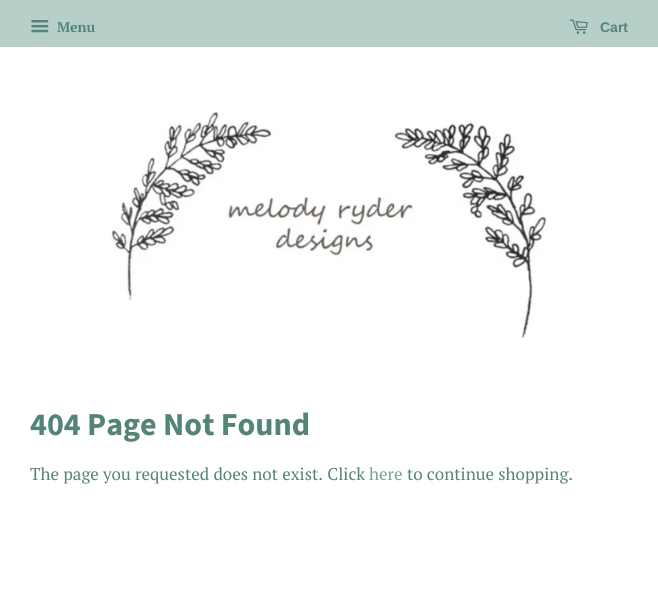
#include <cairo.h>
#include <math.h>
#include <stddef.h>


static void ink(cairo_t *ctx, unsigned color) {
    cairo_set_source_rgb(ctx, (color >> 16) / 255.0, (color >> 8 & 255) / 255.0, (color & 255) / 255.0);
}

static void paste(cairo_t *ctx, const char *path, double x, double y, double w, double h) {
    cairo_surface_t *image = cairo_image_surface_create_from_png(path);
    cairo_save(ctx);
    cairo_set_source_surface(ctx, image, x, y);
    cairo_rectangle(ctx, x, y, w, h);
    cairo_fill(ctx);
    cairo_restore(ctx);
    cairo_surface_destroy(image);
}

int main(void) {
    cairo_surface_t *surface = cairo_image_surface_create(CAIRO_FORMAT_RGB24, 658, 597);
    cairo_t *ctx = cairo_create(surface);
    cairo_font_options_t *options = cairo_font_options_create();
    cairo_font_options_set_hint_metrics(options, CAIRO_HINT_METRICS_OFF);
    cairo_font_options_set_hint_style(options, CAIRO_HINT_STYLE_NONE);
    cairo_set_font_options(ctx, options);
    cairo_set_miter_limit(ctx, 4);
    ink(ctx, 0xFFFFFF);
    cairo_paint(ctx);
    ink(ctx, 0xB7CFC9);
    cairo_rectangle(ctx, 0, 0, 658, 47);
    cairo_fill(ctx);
    paste(ctx, "media/1.png", 31, 20, 18, 13);
    cairo_select_font_face(ctx, "PT Serif", CAIRO_FONT_SLANT_NORMAL, CAIRO_FONT_WEIGHT_BOLD);
    cairo_set_font_size(ctx, 14);
    ink(ctx, 0x548378);
    cairo_move_to(ctx, 57, 32);
    cairo_show_text(ctx, "Menu");
    paste(ctx, "media/2.png", 569, 19, 19, 15);
    cairo_select_font_face(ctx, "Liberation Sans", CAIRO_FONT_SLANT_NORMAL, CAIRO_FONT_WEIGHT_BOLD);
    cairo_move_to(ctx, 600, 32);
    cairo_show_text(ctx, "Cart");
    paste(ctx, "media/3.png", 111, 112, 436, 227);
    cairo_select_font_face(ctx, "Source Sans Pro", CAIRO_FONT_SLANT_NORMAL, CAIRO_FONT_WEIGHT_BOLD);
    cairo_set_font_size(ctx, 32);
    cairo_move_to(ctx, 30, 435);
    cairo_show_text(ctx, "404 Page Not Found");
    cairo_select_font_face(ctx, "PT Serif", CAIRO_FONT_SLANT_NORMAL, CAIRO_FONT_WEIGHT_NORMAL);
    cairo_set_font_size(ctx, 17);
    cairo_move_to(ctx, 30, 480);
    cairo_show_text(ctx, "The page you requested does not exist. Click");
    ink(ctx, 0x71A499);
    cairo_move_to(ctx, 369, 480);
    cairo_show_text(ctx, "here");
    ink(ctx, 0x548378);
    cairo_move_to(ctx, 407, 480);
    cairo_show_text(ctx, "to continue shopping.");
    cairo_surface_write_to_png(surface, "image.png");
    cairo_font_options_destroy(options);
    cairo_destroy(ctx);
    cairo_surface_destroy(surface);
    return 0;
}
